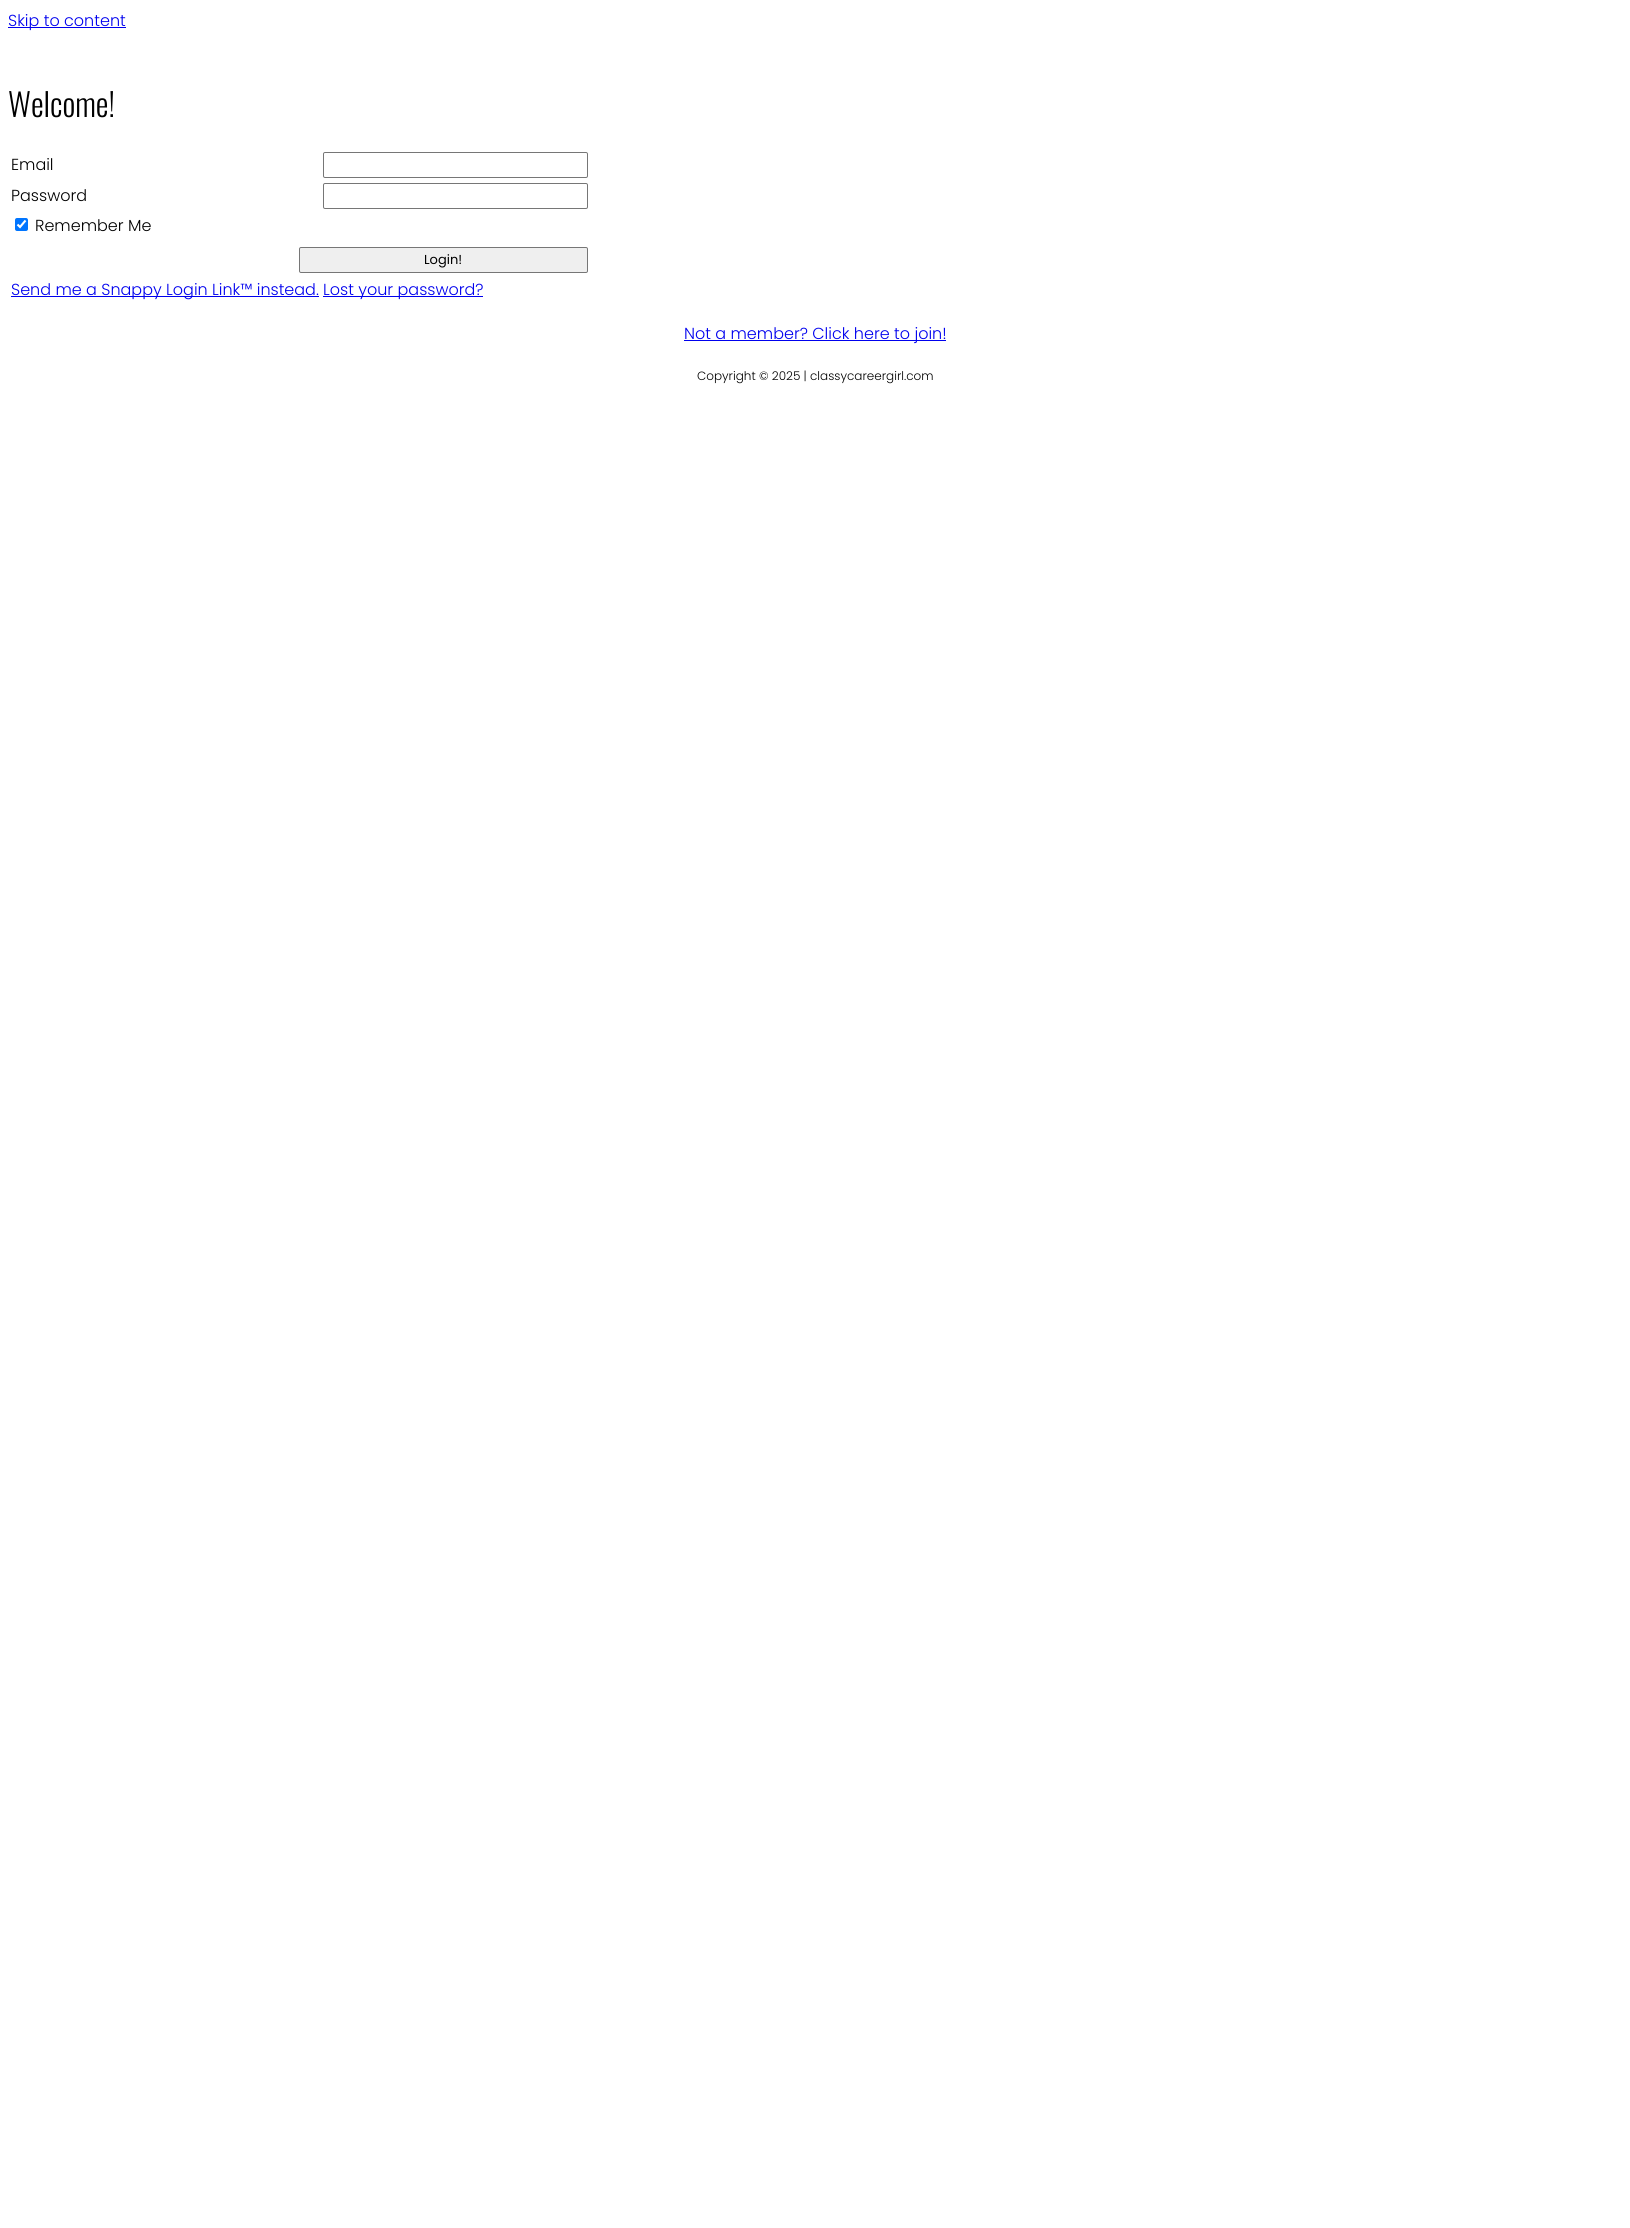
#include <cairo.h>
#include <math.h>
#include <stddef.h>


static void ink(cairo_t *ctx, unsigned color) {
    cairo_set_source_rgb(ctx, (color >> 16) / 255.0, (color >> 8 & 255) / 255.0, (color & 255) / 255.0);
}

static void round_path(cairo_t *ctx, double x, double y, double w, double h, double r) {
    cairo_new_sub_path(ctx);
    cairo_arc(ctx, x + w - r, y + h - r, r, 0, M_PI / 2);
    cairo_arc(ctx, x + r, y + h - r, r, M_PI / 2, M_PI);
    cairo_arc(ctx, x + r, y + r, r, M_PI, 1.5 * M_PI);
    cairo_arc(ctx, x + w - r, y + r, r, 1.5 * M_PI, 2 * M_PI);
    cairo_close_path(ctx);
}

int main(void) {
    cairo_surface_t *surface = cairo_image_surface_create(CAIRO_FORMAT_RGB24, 1630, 2228);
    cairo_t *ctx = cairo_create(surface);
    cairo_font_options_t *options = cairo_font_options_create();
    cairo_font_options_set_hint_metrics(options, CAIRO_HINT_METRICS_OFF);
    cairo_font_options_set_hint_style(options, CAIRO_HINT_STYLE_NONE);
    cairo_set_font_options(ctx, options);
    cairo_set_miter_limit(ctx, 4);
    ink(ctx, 0xFFFFFF);
    cairo_paint(ctx);
    ink(ctx, 0x0000EE);
    cairo_rectangle(ctx, 8, 27, 118, 1);
    cairo_fill(ctx);
    cairo_select_font_face(ctx, "Poppins Light", CAIRO_FONT_SLANT_NORMAL, CAIRO_FONT_WEIGHT_NORMAL);
    cairo_set_font_size(ctx, 16);
    cairo_move_to(ctx, 8, 26);
    cairo_show_text(ctx, "Skip to content");
    cairo_select_font_face(ctx, "Oswald Light", CAIRO_FONT_SLANT_NORMAL, CAIRO_FONT_WEIGHT_NORMAL);
    cairo_set_font_size(ctx, 32);
    ink(ctx, 0x000000);
    cairo_move_to(ctx, 8, 117);
    cairo_show_text(ctx, "Welcome!");
    cairo_select_font_face(ctx, "Poppins Light", CAIRO_FONT_SLANT_NORMAL, CAIRO_FONT_WEIGHT_NORMAL);
    cairo_set_font_size(ctx, 16);
    cairo_move_to(ctx, 11, 170);
    cairo_show_text(ctx, "Email");
    round_path(ctx, 323.5, 152.5, 264, 25, 1.5);
    ink(ctx, 0x767676);
    cairo_set_line_width(ctx, 1);
    cairo_stroke(ctx);
    ink(ctx, 0x000000);
    cairo_move_to(ctx, 11, 201);
    cairo_show_text(ctx, "Password");
    round_path(ctx, 323.5, 183.5, 264, 25, 1.5);
    ink(ctx, 0x767676);
    cairo_stroke(ctx);
    ink(ctx, 0x0075FF);
    round_path(ctx, 15, 218, 13, 13, 2);
    cairo_fill(ctx);
    cairo_new_path(ctx);
    cairo_move_to(ctx, 17.5, 224.5);
    cairo_line_to(ctx, 20, 227);
    cairo_line_to(ctx, 25.5, 220.5);
    ink(ctx, 0xFFFFFF);
    cairo_set_line_width(ctx, 2.1);
    cairo_stroke(ctx);
    ink(ctx, 0x000000);
    cairo_move_to(ctx, 35, 231);
    cairo_show_text(ctx, "Remember Me");
    ink(ctx, 0xEFEFEF);
    round_path(ctx, 299.5, 247.5, 288, 25, 1.5);
    cairo_fill_preserve(ctx);
    ink(ctx, 0x767676);
    cairo_set_line_width(ctx, 1);
    cairo_stroke(ctx);
    cairo_select_font_face(ctx, "Poppins", CAIRO_FONT_SLANT_NORMAL, CAIRO_FONT_WEIGHT_NORMAL);
    cairo_set_font_size(ctx, 13);
    ink(ctx, 0x000000);
    cairo_move_to(ctx, 424, 264);
    cairo_show_text(ctx, "Login!");
    ink(ctx, 0x0000EE);
    cairo_rectangle(ctx, 11, 296, 308, 1);
    cairo_fill(ctx);
    cairo_select_font_face(ctx, "Poppins Light", CAIRO_FONT_SLANT_NORMAL, CAIRO_FONT_WEIGHT_NORMAL);
    cairo_set_font_size(ctx, 16);
    cairo_move_to(ctx, 11, 295);
    cairo_show_text(ctx, "Send me a Snappy Login Link™ instead.");
    cairo_rectangle(ctx, 323, 296, 160, 1);
    cairo_fill(ctx);
    cairo_move_to(ctx, 323, 295);
    cairo_show_text(ctx, "Lost your password?");
    cairo_rectangle(ctx, 684, 340, 262, 1);
    cairo_fill(ctx);
    cairo_move_to(ctx, 684, 339);
    cairo_show_text(ctx, "Not a member? Click here to join!");
    cairo_set_font_size(ctx, 12);
    ink(ctx, 0x000000);
    cairo_move_to(ctx, 697, 380);
    cairo_show_text(ctx, "Copyright © 2025 | classycareergirl.com");
    cairo_surface_write_to_png(surface, "image.png");
    cairo_font_options_destroy(options);
    cairo_destroy(ctx);
    cairo_surface_destroy(surface);
    return 0;
}
